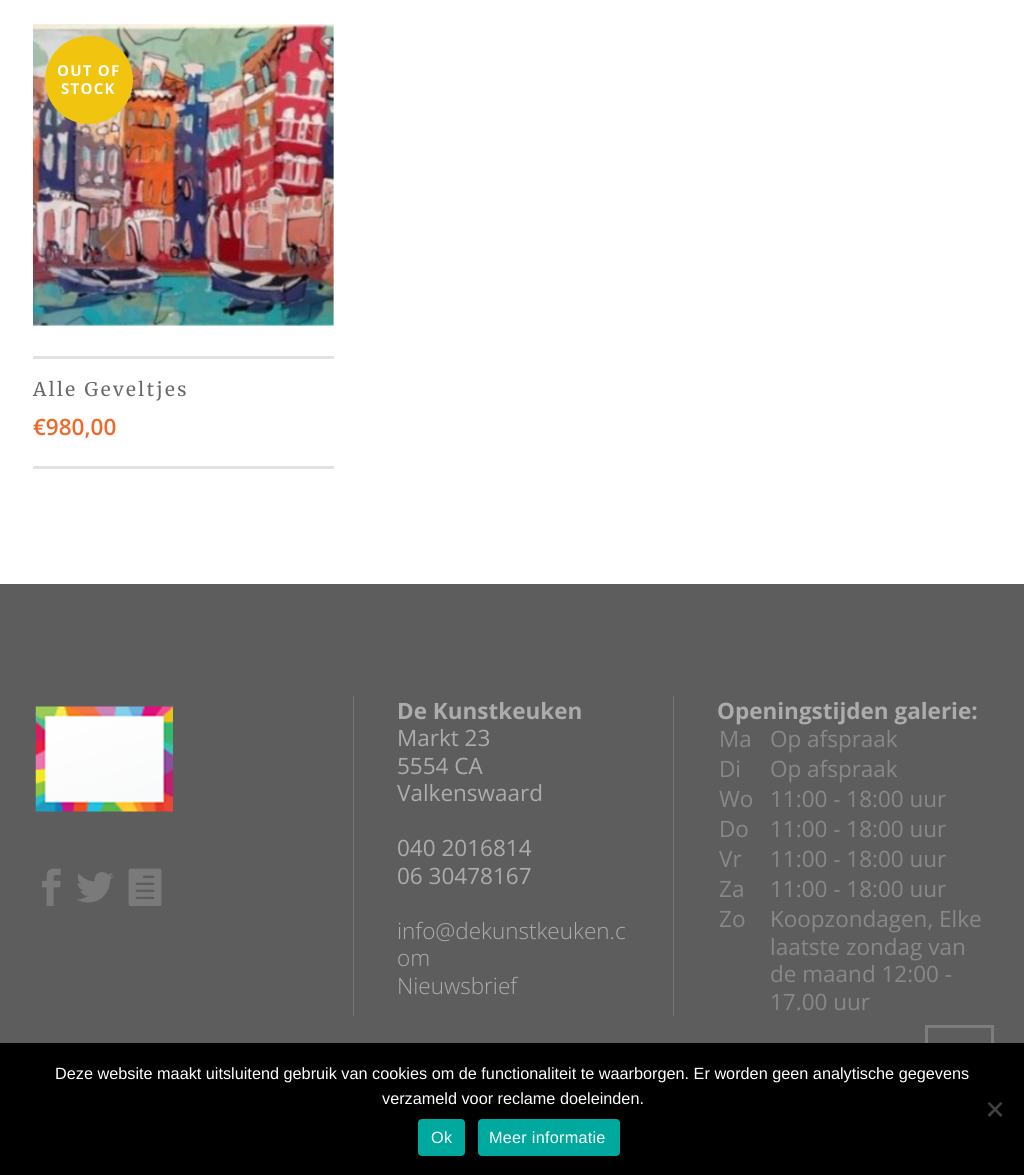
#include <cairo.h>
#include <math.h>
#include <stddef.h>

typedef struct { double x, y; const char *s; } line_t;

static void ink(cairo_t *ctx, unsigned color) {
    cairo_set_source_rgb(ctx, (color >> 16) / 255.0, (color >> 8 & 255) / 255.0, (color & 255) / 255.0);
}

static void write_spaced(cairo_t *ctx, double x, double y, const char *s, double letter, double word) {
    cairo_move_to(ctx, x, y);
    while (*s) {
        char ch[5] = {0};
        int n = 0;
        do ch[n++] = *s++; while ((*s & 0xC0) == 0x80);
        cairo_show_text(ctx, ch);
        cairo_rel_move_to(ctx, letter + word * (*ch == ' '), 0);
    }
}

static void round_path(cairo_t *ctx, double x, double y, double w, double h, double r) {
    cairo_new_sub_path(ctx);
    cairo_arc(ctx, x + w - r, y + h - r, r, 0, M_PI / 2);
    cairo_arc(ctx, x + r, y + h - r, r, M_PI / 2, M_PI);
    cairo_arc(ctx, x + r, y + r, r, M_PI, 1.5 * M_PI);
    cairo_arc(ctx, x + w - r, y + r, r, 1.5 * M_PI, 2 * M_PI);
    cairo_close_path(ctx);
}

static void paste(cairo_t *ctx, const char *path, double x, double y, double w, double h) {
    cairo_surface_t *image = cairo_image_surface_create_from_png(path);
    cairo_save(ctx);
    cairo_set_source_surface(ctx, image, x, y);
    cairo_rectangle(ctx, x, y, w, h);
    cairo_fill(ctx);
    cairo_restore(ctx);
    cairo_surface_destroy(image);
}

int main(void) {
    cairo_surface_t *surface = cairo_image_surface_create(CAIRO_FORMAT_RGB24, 1024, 1175);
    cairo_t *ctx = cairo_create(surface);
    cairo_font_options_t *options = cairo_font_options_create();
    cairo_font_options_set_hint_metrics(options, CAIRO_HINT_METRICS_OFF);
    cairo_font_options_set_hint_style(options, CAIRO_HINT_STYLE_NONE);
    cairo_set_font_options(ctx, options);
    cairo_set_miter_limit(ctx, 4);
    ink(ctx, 0xFFFFFF);
    cairo_paint(ctx);
    paste(ctx, "media/1.png", 33, 24, 301, 302);
    ink(ctx, 0xF1C40F);
    cairo_arc(ctx, 89, 80, 44, 0, 2 * M_PI);
    cairo_fill(ctx);
    cairo_select_font_face(ctx, "Open Sans", CAIRO_FONT_SLANT_NORMAL, CAIRO_FONT_WEIGHT_BOLD);
    cairo_set_font_size(ctx, 15);
    ink(ctx, 0xFFFFFF);
    write_spaced(ctx, 57, 76, "OUT OF", 1.25, 0);
    write_spaced(ctx, 61, 94, "STOCK", 1.25, 0);
    ink(ctx, 0xE2E2E2);
    cairo_rectangle(ctx, 33, 356, 301, 3);
    cairo_fill(ctx);
    cairo_rectangle(ctx, 33, 466, 301, 3);
    cairo_fill(ctx);
    cairo_select_font_face(ctx, "Merriweather", CAIRO_FONT_SLANT_NORMAL, CAIRO_FONT_WEIGHT_NORMAL);
    cairo_set_font_size(ctx, 18.75);
    ink(ctx, 0x696969);
    write_spaced(ctx, 33, 396, "Alle Geveltjes", 2.5, 0);
    cairo_select_font_face(ctx, "Open Sans SemiBold", CAIRO_FONT_SLANT_NORMAL, CAIRO_FONT_WEIGHT_NORMAL);
    cairo_set_font_size(ctx, 22.5);
    ink(ctx, 0xF16728);
    cairo_move_to(ctx, 33, 435);
    cairo_show_text(ctx, "€980,00");
    ink(ctx, 0x5D5D5D);
    cairo_rectangle(ctx, 0, 584, 1024, 459);
    cairo_fill(ctx);
    paste(ctx, "media/2.png", 35, 706, 138, 106);
    paste(ctx, "media/3.png", 42, 868, 19, 38);
    paste(ctx, "media/4.png", 76, 872, 38, 31);
    paste(ctx, "media/5.png", 128, 868, 34, 38);
    ink(ctx, 0x777777);
    cairo_rectangle(ctx, 353, 696, 1, 320);
    cairo_fill(ctx);
    cairo_select_font_face(ctx, "Open Sans", CAIRO_FONT_SLANT_NORMAL, CAIRO_FONT_WEIGHT_BOLD);
    ink(ctx, 0xACACAC);
    cairo_move_to(ctx, 397, 719);
    cairo_show_text(ctx, "De Kunstkeuken");
    cairo_select_font_face(ctx, "Open Sans", CAIRO_FONT_SLANT_NORMAL, CAIRO_FONT_WEIGHT_NORMAL);
    {
        static const line_t items[] = {
            {397, 746, "Markt 23"},
            {397, 774, "5554 CA"},
            {397, 801, "Valkenswaard"},
            {397, 856, "040 2016814"},
            {397, 884, "06 30478167"},
        };
        for (size_t i = 0; i < sizeof items / sizeof *items; i++) {
            cairo_move_to(ctx, items[i].x, items[i].y);
            cairo_show_text(ctx, items[i].s);
        }
    }
    cairo_select_font_face(ctx, "Open Sans Light", CAIRO_FONT_SLANT_NORMAL, CAIRO_FONT_WEIGHT_NORMAL);
    {
        static const line_t items[] = {
            {397, 939, "info@dekunstkeuken.c"},
            {397, 966, "om"},
            {397, 994, "Nieuwsbrief"},
        };
        for (size_t i = 0; i < sizeof items / sizeof *items; i++) {
            cairo_move_to(ctx, items[i].x, items[i].y);
            cairo_show_text(ctx, items[i].s);
        }
    }
    ink(ctx, 0x777777);
    cairo_rectangle(ctx, 673, 696, 1, 320);
    cairo_fill(ctx);
    cairo_select_font_face(ctx, "Open Sans", CAIRO_FONT_SLANT_NORMAL, CAIRO_FONT_WEIGHT_BOLD);
    ink(ctx, 0xACACAC);
    cairo_move_to(ctx, 717, 719);
    cairo_show_text(ctx, "Openingstijden galerie:");
    cairo_select_font_face(ctx, "Open Sans", CAIRO_FONT_SLANT_NORMAL, CAIRO_FONT_WEIGHT_NORMAL);
    ink(ctx, 0x888888);
    {
        static const line_t items[] = {
            {719, 747, "Ma"},
            {770, 747, "Op afspraak"},
            {719, 777, "Di"},
            {770, 777, "Op afspraak"},
            {719, 807, "Wo"},
            {770, 807, "11:00 - 18:00 uur"},
            {719, 837, "Do"},
            {770, 837, "11:00 - 18:00 uur"},
            {719, 867, "Vr"},
            {770, 867, "11:00 - 18:00 uur"},
            {719, 897, "Za"},
            {770, 897, "11:00 - 18:00 uur"},
            {719, 927, "Zo"},
            {770, 927, "Koopzondagen, Elke"},
            {770, 955, "laatste zondag van"},
            {770, 982, "de maand 12:00 -"},
            {770, 1010, "17.00 uur"},
        };
        for (size_t i = 0; i < sizeof items / sizeof *items; i++) {
            cairo_move_to(ctx, items[i].x, items[i].y);
            cairo_show_text(ctx, items[i].s);
        }
    }
    cairo_rectangle(ctx, 926.5, 1026.5, 66, 66);
    ink(ctx, 0x7D7D7D);
    cairo_set_line_width(ctx, 3);
    cairo_stroke(ctx);
    ink(ctx, 0x000000);
    cairo_rectangle(ctx, 0, 1043, 1024, 132);
    cairo_fill(ctx);
    cairo_select_font_face(ctx, "Liberation Sans", CAIRO_FONT_SLANT_NORMAL, CAIRO_FONT_WEIGHT_NORMAL);
    cairo_set_font_size(ctx, 16.25);
    ink(ctx, 0xFFFFFF);
    cairo_move_to(ctx, 55, 1079);
    cairo_show_text(ctx, "Deze website maakt uitsluitend gebruik van cookies om de functionaliteit te waarborgen. Er worden geen analytische gegevens");
    cairo_move_to(ctx, 382, 1104);
    cairo_show_text(ctx, "verzameld voor reclame doeleinden.");
    ink(ctx, 0x404040);
    cairo_new_path(ctx);
    cairo_move_to(ctx, 1000.5, 1102);
    cairo_line_to(ctx, 1002.5, 1103.5);
    cairo_line_to(ctx, 989.5, 1117);
    cairo_line_to(ctx, 987.5, 1115);
    cairo_close_path(ctx);
    cairo_fill(ctx);
    cairo_new_path(ctx);
    cairo_move_to(ctx, 987.5, 1103.5);
    cairo_line_to(ctx, 989.5, 1102);
    cairo_line_to(ctx, 1002.5, 1115);
    cairo_line_to(ctx, 1000.5, 1117);
    cairo_close_path(ctx);
    cairo_fill(ctx);
    ink(ctx, 0x00A99D);
    round_path(ctx, 418, 1119, 47, 37, 4);
    cairo_fill(ctx);
    ink(ctx, 0xFFFFFF);
    write_spaced(ctx, 431, 1143, "Ok", 0.25, 0);
    ink(ctx, 0x00A99D);
    round_path(ctx, 478, 1119, 142, 37, 4);
    cairo_fill(ctx);
    ink(ctx, 0xFFFFFF);
    write_spaced(ctx, 489, 1143, "Meer informatie", 0.25, 0);
    cairo_surface_write_to_png(surface, "image.png");
    cairo_font_options_destroy(options);
    cairo_destroy(ctx);
    cairo_surface_destroy(surface);
    return 0;
}
